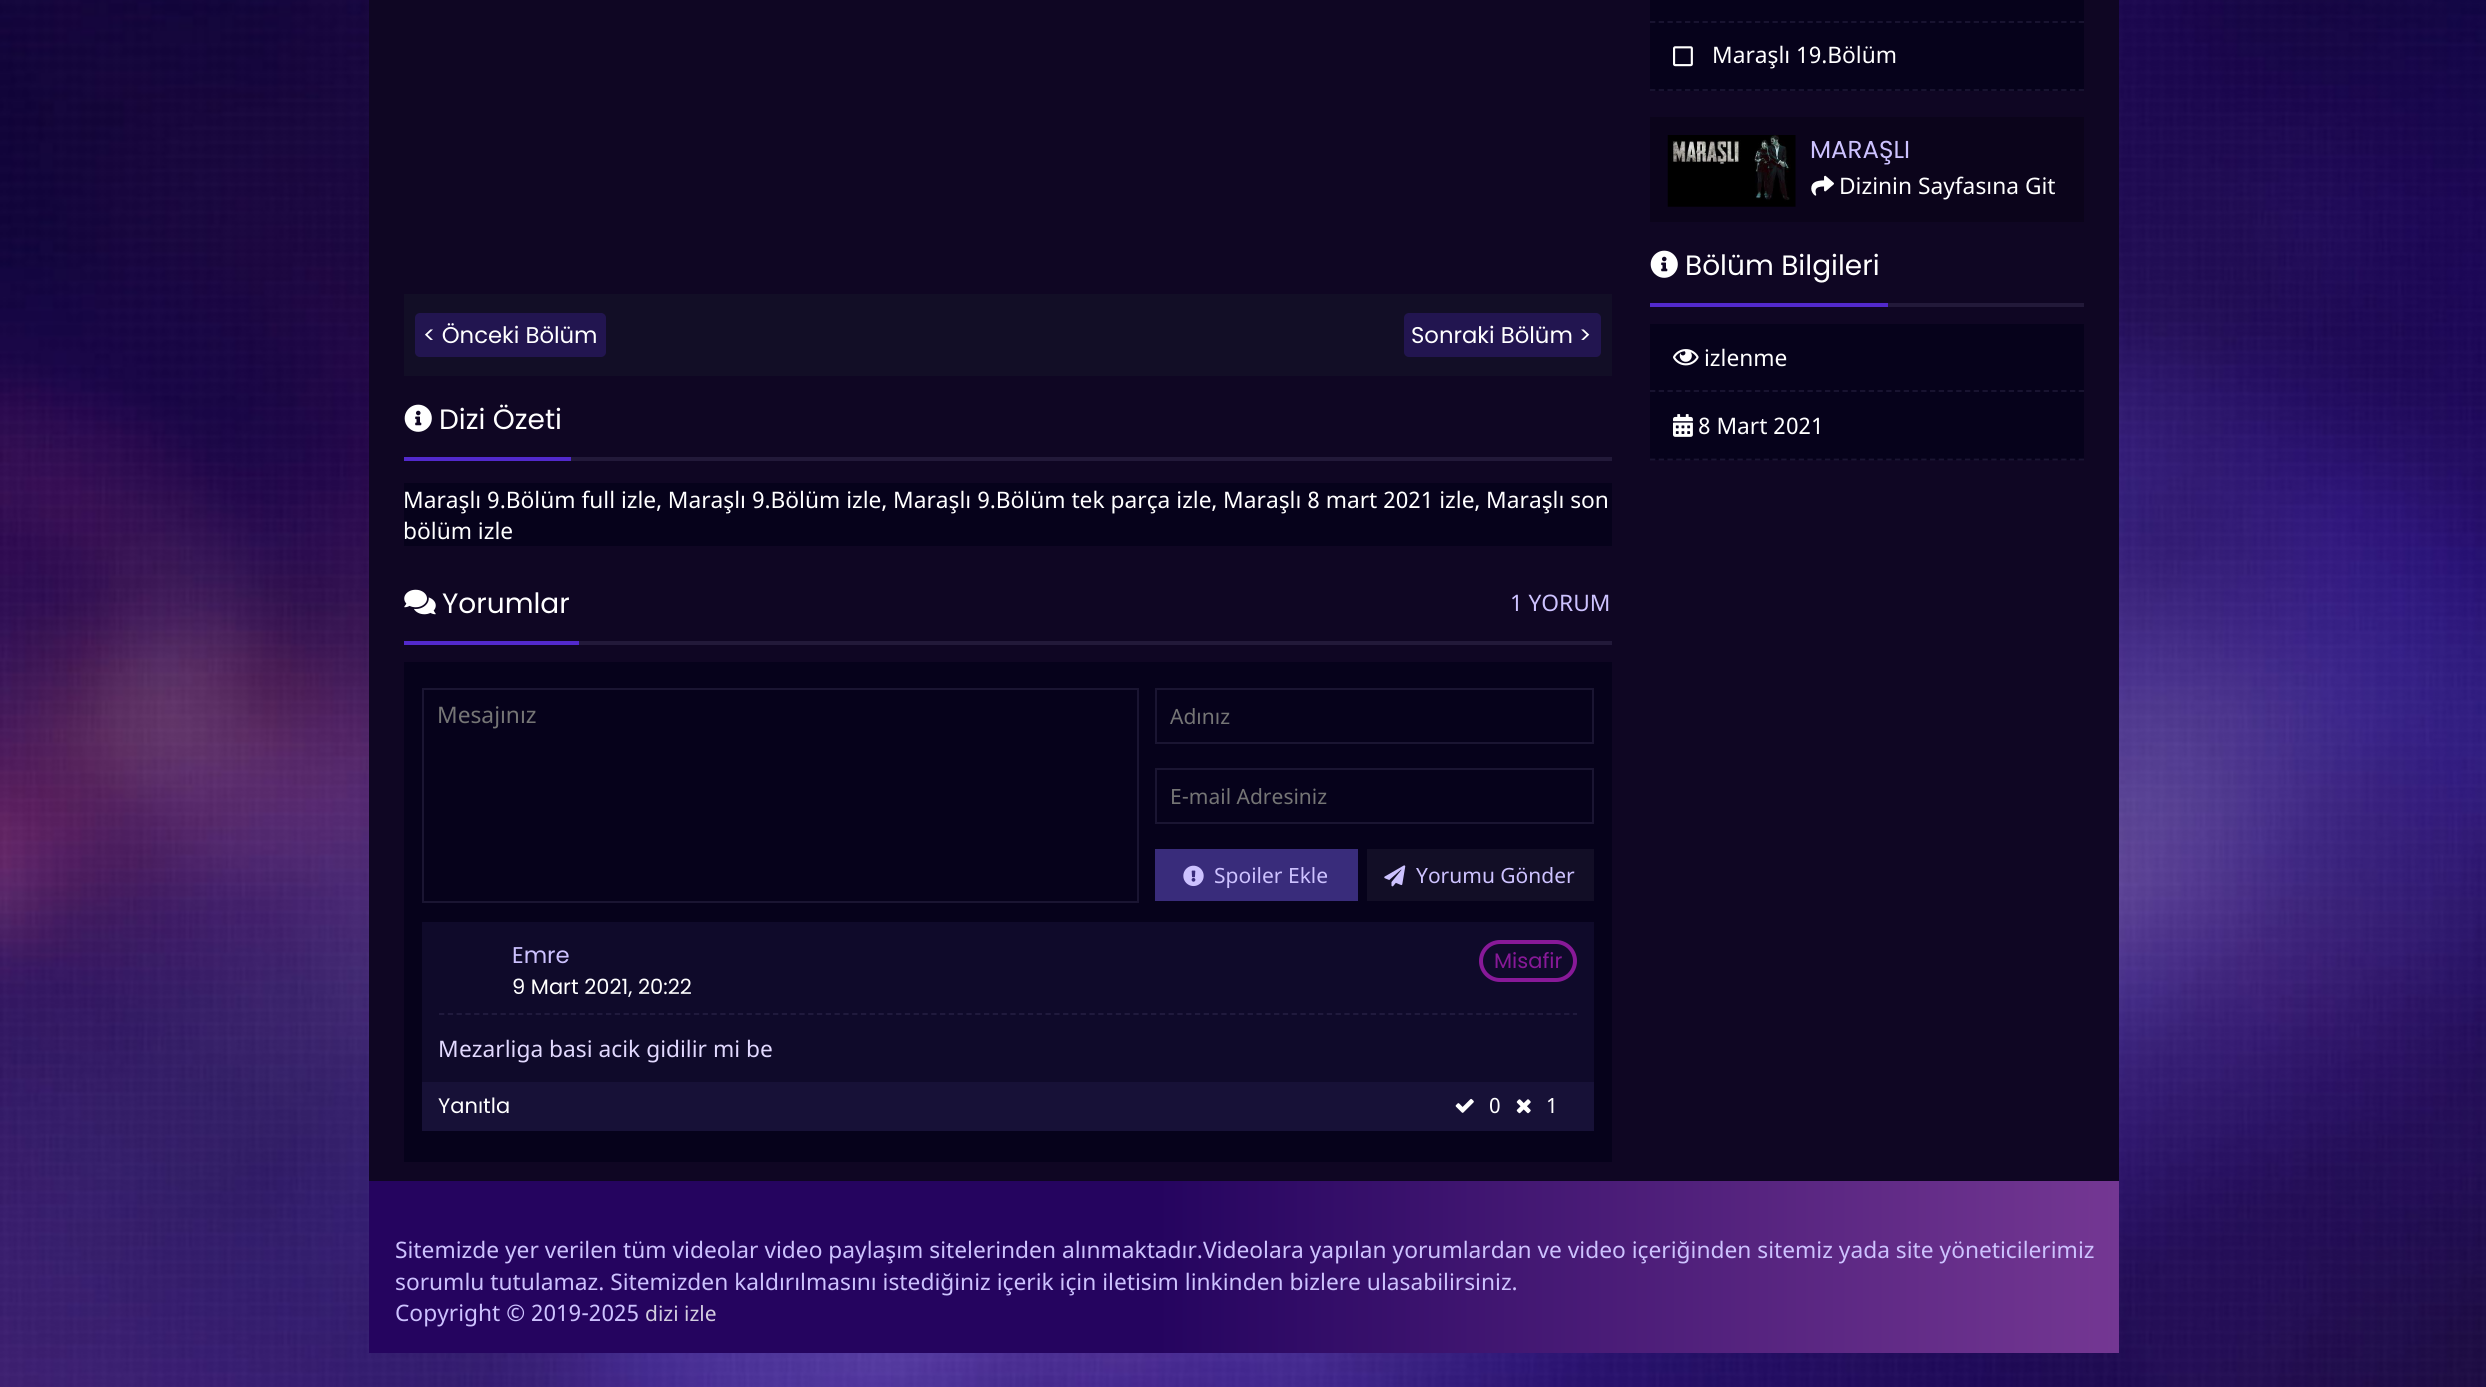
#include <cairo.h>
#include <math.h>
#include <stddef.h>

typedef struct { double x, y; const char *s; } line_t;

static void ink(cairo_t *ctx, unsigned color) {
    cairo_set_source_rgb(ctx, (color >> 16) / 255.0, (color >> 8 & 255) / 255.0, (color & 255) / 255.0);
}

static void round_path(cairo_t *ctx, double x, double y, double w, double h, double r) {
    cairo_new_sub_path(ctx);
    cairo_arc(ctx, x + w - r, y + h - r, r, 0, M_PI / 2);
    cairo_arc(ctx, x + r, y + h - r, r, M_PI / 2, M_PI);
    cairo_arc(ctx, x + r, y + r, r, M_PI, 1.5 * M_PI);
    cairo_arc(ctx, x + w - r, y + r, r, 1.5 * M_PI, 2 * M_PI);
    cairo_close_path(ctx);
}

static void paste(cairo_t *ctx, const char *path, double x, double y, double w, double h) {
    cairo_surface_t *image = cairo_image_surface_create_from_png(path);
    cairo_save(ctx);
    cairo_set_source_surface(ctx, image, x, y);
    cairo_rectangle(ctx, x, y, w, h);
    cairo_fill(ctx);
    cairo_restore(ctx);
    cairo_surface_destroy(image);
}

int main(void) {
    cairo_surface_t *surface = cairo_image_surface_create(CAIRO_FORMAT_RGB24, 2486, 1387);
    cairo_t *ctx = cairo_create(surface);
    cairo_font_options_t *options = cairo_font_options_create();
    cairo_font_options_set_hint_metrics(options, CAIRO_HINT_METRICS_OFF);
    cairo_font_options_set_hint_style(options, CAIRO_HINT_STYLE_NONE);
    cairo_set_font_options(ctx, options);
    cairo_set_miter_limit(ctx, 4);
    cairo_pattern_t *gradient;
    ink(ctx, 0xFFFFFF);
    cairo_paint(ctx);
    paste(ctx, "media/1.png", 0, 0, 2486, 1387);
    ink(ctx, 0x0F0623);
    cairo_rectangle(ctx, 369, 0, 1750, 1181);
    cairo_fill(ctx);
    ink(ctx, 0x120E26);
    cairo_rectangle(ctx, 404, 294, 1208, 82);
    cairo_fill(ctx);
    ink(ctx, 0x221550);
    round_path(ctx, 415, 313, 191, 44, 5);
    cairo_fill(ctx);
    cairo_select_font_face(ctx, "Poppins", CAIRO_FONT_SLANT_NORMAL, CAIRO_FONT_WEIGHT_NORMAL);
    cairo_set_font_size(ctx, 22.75);
    ink(ctx, 0xFFFFFF);
    cairo_move_to(ctx, 423, 343);
    cairo_show_text(ctx, "< Önceki Bölüm");
    ink(ctx, 0x221550);
    round_path(ctx, 1404, 313, 197, 44, 5);
    cairo_fill(ctx);
    ink(ctx, 0xFFFFFF);
    cairo_move_to(ctx, 1411, 343);
    cairo_show_text(ctx, "Sonraki Bölüm >");
    ink(ctx, 0x06021B);
    cairo_rectangle(ctx, 1650, 0, 434, 91);
    cairo_fill(ctx);
    cairo_new_path(ctx);
    cairo_move_to(ctx, 1650, 22);
    cairo_line_to(ctx, 2084, 22);
    ink(ctx, 0x1A1532);
    cairo_set_line_width(ctx, 1.8);
    cairo_set_dash(ctx, (double[]){5.25, 3.5}, 2, 0);
    cairo_stroke(ctx);
    cairo_new_path(ctx);
    cairo_move_to(ctx, 1650, 90);
    cairo_line_to(ctx, 2084, 90);
    cairo_stroke(ctx);
    paste(ctx, "media/2.png", 1673, 46, 20, 21);
    cairo_select_font_face(ctx, "Noto Sans", CAIRO_FONT_SLANT_NORMAL, CAIRO_FONT_WEIGHT_NORMAL);
    ink(ctx, 0xFFFFFF);
    cairo_move_to(ctx, 1712, 63);
    cairo_show_text(ctx, "Maraşlı 19.Bölüm");
    ink(ctx, 0x0B041B);
    cairo_rectangle(ctx, 1650, 117, 434, 105);
    cairo_fill(ctx);
    paste(ctx, "media/3.png", 1667, 135, 129, 72);
    cairo_select_font_face(ctx, "Poppins", CAIRO_FONT_SLANT_NORMAL, CAIRO_FONT_WEIGHT_NORMAL);
    cairo_set_font_size(ctx, 24.5);
    ink(ctx, 0xCDC2FF);
    cairo_move_to(ctx, 1810, 158);
    cairo_show_text(ctx, "MARAŞLI");
    paste(ctx, "media/4.png", 1811, 175, 23, 21);
    cairo_select_font_face(ctx, "Noto Sans", CAIRO_FONT_SLANT_NORMAL, CAIRO_FONT_WEIGHT_NORMAL);
    cairo_set_font_size(ctx, 22.75);
    ink(ctx, 0xFFFFFF);
    cairo_move_to(ctx, 1839, 194);
    cairo_show_text(ctx, "Dizinin Sayfasına Git");
    ink(ctx, 0x221939);
    cairo_rectangle(ctx, 1888, 303, 196, 4);
    cairo_fill(ctx);
    ink(ctx, 0x5229CC);
    cairo_rectangle(ctx, 1650, 303, 238, 4);
    cairo_fill(ctx);
    paste(ctx, "media/5.png", 1650, 250, 28, 28);
    cairo_select_font_face(ctx, "Poppins", CAIRO_FONT_SLANT_NORMAL, CAIRO_FONT_WEIGHT_NORMAL);
    cairo_set_font_size(ctx, 28);
    ink(ctx, 0xFFFFFF);
    cairo_move_to(ctx, 1685, 275);
    cairo_show_text(ctx, "Bölüm Bilgileri");
    ink(ctx, 0x06021B);
    cairo_rectangle(ctx, 1650, 324, 434, 136);
    cairo_fill(ctx);
    cairo_new_path(ctx);
    cairo_move_to(ctx, 1650, 391);
    cairo_line_to(ctx, 2084, 391);
    ink(ctx, 0x1A1532);
    cairo_stroke(ctx);
    paste(ctx, "media/6.png", 1673, 349, 26, 17);
    cairo_select_font_face(ctx, "Noto Sans", CAIRO_FONT_SLANT_NORMAL, CAIRO_FONT_WEIGHT_NORMAL);
    cairo_set_font_size(ctx, 22.75);
    ink(ctx, 0xFFFFFF);
    cairo_move_to(ctx, 1704, 366);
    cairo_show_text(ctx, "izlenme");
    cairo_new_path(ctx);
    cairo_move_to(ctx, 1650, 459.5);
    cairo_line_to(ctx, 2084, 459.5);
    ink(ctx, 0x1A1532);
    cairo_stroke(ctx);
    paste(ctx, "media/7.png", 1673, 414, 20, 23);
    ink(ctx, 0xFFFFFF);
    cairo_move_to(ctx, 1698, 434);
    cairo_show_text(ctx, "8 Mart 2021");
    ink(ctx, 0x221939);
    cairo_rectangle(ctx, 571, 457, 1041, 4);
    cairo_fill(ctx);
    ink(ctx, 0x5229CC);
    cairo_rectangle(ctx, 404, 457, 167, 4);
    cairo_fill(ctx);
    paste(ctx, "media/5.png", 404, 404, 28, 28);
    cairo_select_font_face(ctx, "Poppins", CAIRO_FONT_SLANT_NORMAL, CAIRO_FONT_WEIGHT_NORMAL);
    cairo_set_font_size(ctx, 28);
    ink(ctx, 0xFFFFFF);
    cairo_move_to(ctx, 439, 429);
    cairo_show_text(ctx, "Dizi Özeti");
    ink(ctx, 0x06021B);
    cairo_rectangle(ctx, 404, 483, 1208, 63);
    cairo_fill(ctx);
    cairo_select_font_face(ctx, "Noto Sans", CAIRO_FONT_SLANT_NORMAL, CAIRO_FONT_WEIGHT_NORMAL);
    cairo_set_font_size(ctx, 22.75);
    ink(ctx, 0xFFFFFF);
    cairo_move_to(ctx, 403, 508);
    cairo_show_text(ctx, "Maraşlı 9.Bölüm full izle, Maraşlı 9.Bölüm izle, Maraşlı 9.Bölüm tek parça izle, Maraşlı 8 mart 2021 izle, Maraşlı son");
    cairo_move_to(ctx, 403, 539);
    cairo_show_text(ctx, "bölüm izle");
    ink(ctx, 0x221939);
    cairo_rectangle(ctx, 579, 641, 1033, 4);
    cairo_fill(ctx);
    ink(ctx, 0x5229CC);
    cairo_rectangle(ctx, 404, 641, 175, 4);
    cairo_fill(ctx);
    paste(ctx, "media/8.png", 404, 589, 32, 26);
    cairo_select_font_face(ctx, "Poppins", CAIRO_FONT_SLANT_NORMAL, CAIRO_FONT_WEIGHT_NORMAL);
    cairo_set_font_size(ctx, 28);
    ink(ctx, 0xFFFFFF);
    cairo_move_to(ctx, 442, 613);
    cairo_show_text(ctx, "Yorumlar");
    cairo_select_font_face(ctx, "Noto Sans", CAIRO_FONT_SLANT_NORMAL, CAIRO_FONT_WEIGHT_NORMAL);
    cairo_set_font_size(ctx, 22.75);
    ink(ctx, 0xCDC2FF);
    cairo_move_to(ctx, 1510, 611);
    cairo_show_text(ctx, "1 YORUM");
    ink(ctx, 0x06021B);
    cairo_rectangle(ctx, 404, 662, 1208, 500);
    cairo_fill(ctx);
    cairo_rectangle(ctx, 423, 689, 715, 213);
    ink(ctx, 0x1A1532);
    cairo_set_line_width(ctx, 2);
    cairo_set_dash(ctx, NULL, 0, 0);
    cairo_stroke(ctx);
    ink(ctx, 0x757575);
    cairo_move_to(ctx, 437, 723);
    cairo_show_text(ctx, "Mesajınız");
    cairo_rectangle(ctx, 1156, 689, 437, 54);
    ink(ctx, 0x1A1532);
    cairo_stroke(ctx);
    cairo_set_font_size(ctx, 21);
    ink(ctx, 0x757575);
    cairo_move_to(ctx, 1170, 724);
    cairo_show_text(ctx, "Adınız");
    cairo_rectangle(ctx, 1156, 769, 437, 54);
    ink(ctx, 0x1A1532);
    cairo_stroke(ctx);
    ink(ctx, 0x757575);
    cairo_move_to(ctx, 1170, 804);
    cairo_show_text(ctx, "E-mail Adresiniz");
    ink(ctx, 0x392C7B);
    cairo_rectangle(ctx, 1155, 849, 203, 52);
    cairo_fill(ctx);
    paste(ctx, "media/9.png", 1183, 865, 21, 22);
    ink(ctx, 0xCDC2FF);
    cairo_move_to(ctx, 1214, 883);
    cairo_show_text(ctx, "Spoiler Ekle");
    ink(ctx, 0x120E26);
    cairo_rectangle(ctx, 1367, 849, 227, 52);
    cairo_fill(ctx);
    paste(ctx, "media/10.png", 1384, 865, 22, 22);
    ink(ctx, 0xCDC2FF);
    cairo_move_to(ctx, 1416, 883);
    cairo_show_text(ctx, "Yorumu Gönder");
    ink(ctx, 0x0F0A2A);
    cairo_rectangle(ctx, 422, 922, 1172, 160);
    cairo_fill(ctx);
    cairo_select_font_face(ctx, "Poppins", CAIRO_FONT_SLANT_NORMAL, CAIRO_FONT_WEIGHT_NORMAL);
    cairo_set_font_size(ctx, 22.75);
    ink(ctx, 0xCDC2FF);
    cairo_move_to(ctx, 512, 963);
    cairo_show_text(ctx, "Emre");
    round_path(ctx, 1481, 942, 94, 38, 19);
    ink(ctx, 0x881998);
    cairo_set_line_width(ctx, 4);
    cairo_stroke(ctx);
    cairo_set_font_size(ctx, 21);
    cairo_move_to(ctx, 1494, 968);
    cairo_show_text(ctx, "Misafir");
    cairo_new_path(ctx);
    cairo_move_to(ctx, 439, 1014);
    cairo_line_to(ctx, 1577, 1014);
    ink(ctx, 0x221C3F);
    cairo_set_line_width(ctx, 1.8);
    cairo_set_dash(ctx, (double[]){5.25, 3.54}, 2, 0);
    cairo_stroke(ctx);
    ink(ctx, 0xFFFFFF);
    cairo_move_to(ctx, 512, 994);
    cairo_show_text(ctx, "9 Mart 2021, 20:22");
    cairo_select_font_face(ctx, "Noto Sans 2", CAIRO_FONT_SLANT_NORMAL, CAIRO_FONT_WEIGHT_NORMAL);
    cairo_set_font_size(ctx, 22.75);
    ink(ctx, 0xE2D9FF);
    cairo_move_to(ctx, 438, 1057);
    cairo_show_text(ctx, "M");
    cairo_select_font_face(ctx, "Noto Sans", CAIRO_FONT_SLANT_NORMAL, CAIRO_FONT_WEIGHT_NORMAL);
    cairo_move_to(ctx, 459, 1057);
    cairo_show_text(ctx, "ezarliga basi acik gidilir mi be");
    ink(ctx, 0x171137);
    cairo_rectangle(ctx, 422, 1082, 1172, 49);
    cairo_fill(ctx);
    cairo_select_font_face(ctx, "Poppins", CAIRO_FONT_SLANT_NORMAL, CAIRO_FONT_WEIGHT_NORMAL);
    cairo_set_font_size(ctx, 21);
    ink(ctx, 0xFFFFFF);
    cairo_move_to(ctx, 438, 1113);
    cairo_show_text(ctx, "Yanıtla");
    paste(ctx, "media/11.png", 1455, 1098, 19, 15);
    cairo_select_font_face(ctx, "Noto Sans", CAIRO_FONT_SLANT_NORMAL, CAIRO_FONT_WEIGHT_NORMAL);
    cairo_move_to(ctx, 1489, 1113);
    cairo_show_text(ctx, "0");
    paste(ctx, "media/12.png", 1516, 1099, 15, 15);
    cairo_move_to(ctx, 1546, 1113);
    cairo_show_text(ctx, "1");
    gradient = cairo_pattern_create_linear(369, 1267, 2119, 1267);
    cairo_pattern_add_color_stop_rgba(gradient, 0.45, 0.145, 0.016, 0.373, 1);
    cairo_pattern_add_color_stop_rgba(gradient, 1, 0.455, 0.216, 0.576, 1);
    cairo_set_source(ctx, gradient);
    cairo_pattern_destroy(gradient);
    cairo_rectangle(ctx, 369, 1181, 1750, 172);
    cairo_fill(ctx);
    cairo_set_font_size(ctx, 22.75);
    ink(ctx, 0xCDC2FF);
    {
        static const line_t items[] = {
            {395, 1258, "Sitemizde yer verilen tüm videolar video paylaşım sitelerinden alınmaktadır.Videolara yapılan yorumlardan ve video içeriğinden sitemiz yada site yöneticilerimiz"},
            {395, 1290, "sorumlu tutulamaz. Sitemizden kaldırılmasını istediğiniz içerik için iletisim linkinden bizlere ulasabilirsiniz."},
            {395, 1321, "Copyright © 2019-2025"},
        };
        for (size_t i = 0; i < sizeof items / sizeof *items; i++) {
            cairo_move_to(ctx, items[i].x, items[i].y);
            cairo_show_text(ctx, items[i].s);
        }
    }
    cairo_set_font_size(ctx, 21);
    ink(ctx, 0xD3CDDF);
    cairo_move_to(ctx, 645, 1321);
    cairo_show_text(ctx, "dizi izle");
    cairo_surface_write_to_png(surface, "image.png");
    cairo_font_options_destroy(options);
    cairo_destroy(ctx);
    cairo_surface_destroy(surface);
    return 0;
}
